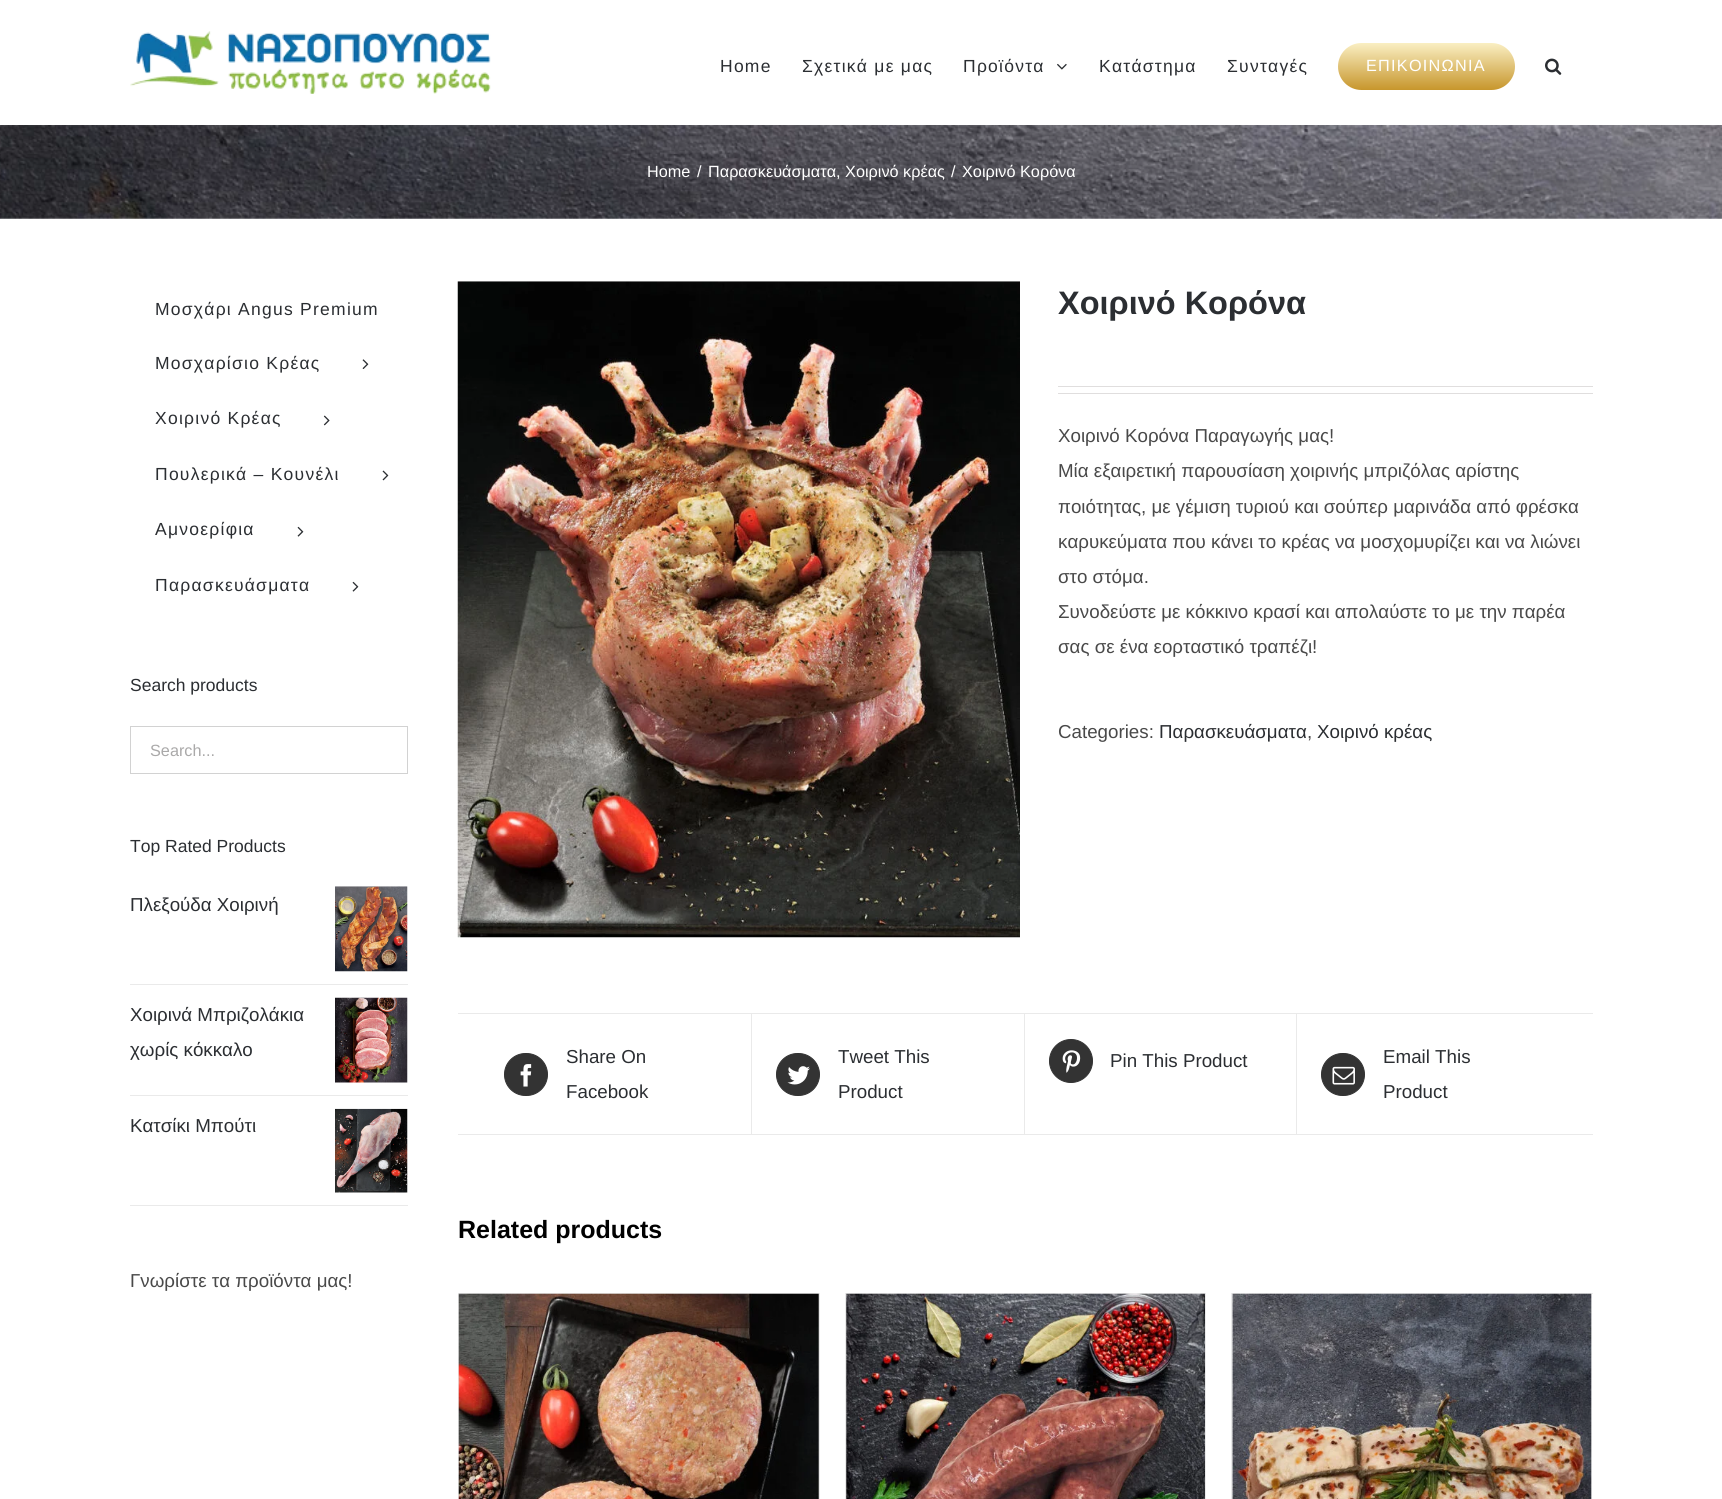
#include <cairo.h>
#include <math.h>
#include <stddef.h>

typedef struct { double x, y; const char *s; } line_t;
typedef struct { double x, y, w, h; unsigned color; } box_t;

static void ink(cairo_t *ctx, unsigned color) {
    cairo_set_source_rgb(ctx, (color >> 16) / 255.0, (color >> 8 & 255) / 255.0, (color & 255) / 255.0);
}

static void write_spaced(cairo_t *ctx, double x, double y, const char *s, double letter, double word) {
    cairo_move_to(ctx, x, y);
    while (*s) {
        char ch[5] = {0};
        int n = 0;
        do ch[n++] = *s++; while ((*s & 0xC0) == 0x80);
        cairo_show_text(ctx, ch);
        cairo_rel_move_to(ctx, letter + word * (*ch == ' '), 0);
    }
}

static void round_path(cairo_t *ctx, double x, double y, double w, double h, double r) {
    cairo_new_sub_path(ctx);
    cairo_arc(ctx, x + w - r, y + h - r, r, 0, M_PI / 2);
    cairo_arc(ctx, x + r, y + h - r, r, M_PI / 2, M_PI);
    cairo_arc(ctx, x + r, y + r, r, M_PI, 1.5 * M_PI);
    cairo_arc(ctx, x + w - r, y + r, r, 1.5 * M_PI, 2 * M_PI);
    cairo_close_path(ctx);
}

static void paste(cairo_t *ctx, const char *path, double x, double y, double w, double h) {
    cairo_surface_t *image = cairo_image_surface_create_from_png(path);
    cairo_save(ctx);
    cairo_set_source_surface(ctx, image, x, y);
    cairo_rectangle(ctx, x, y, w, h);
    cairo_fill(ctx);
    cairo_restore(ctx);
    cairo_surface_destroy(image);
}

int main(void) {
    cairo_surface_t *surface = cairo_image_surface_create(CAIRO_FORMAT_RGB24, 1722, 1499);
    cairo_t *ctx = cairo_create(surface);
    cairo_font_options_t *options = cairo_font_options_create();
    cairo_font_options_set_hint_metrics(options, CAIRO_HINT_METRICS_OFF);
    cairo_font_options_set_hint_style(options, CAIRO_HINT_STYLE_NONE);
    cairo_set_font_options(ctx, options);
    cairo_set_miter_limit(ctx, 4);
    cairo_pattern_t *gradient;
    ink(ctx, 0xFFFFFF);
    cairo_paint(ctx);
    paste(ctx, "media/1.png", 130, 31, 361, 63);
    cairo_select_font_face(ctx, "Liberation Sans", CAIRO_FONT_SLANT_NORMAL, CAIRO_FONT_WEIGHT_NORMAL);
    cairo_set_font_size(ctx, 17.5);
    ink(ctx, 0x2B2E32);
    {
        static const line_t items[] = {
            {720, 72, "Home"},
            {802, 72, "Σχετικά με μας"},
            {963, 72, "Προϊόντα"},
        };
        for (size_t i = 0; i < sizeof items / sizeof *items; i++) {
            write_spaced(ctx, items[i].x, items[i].y, items[i].s, 1.25, 0);
        }
    }
    paste(ctx, "media/2.png", 1057, 63, 10, 7);
    write_spaced(ctx, 1099, 72, "Κατάστημα", 1.25, 0);
    write_spaced(ctx, 1227, 72, "Συνταγές", 1.25, 0);
    gradient = cairo_pattern_create_linear(1426, 90, 1426, 43);
    cairo_pattern_add_color_stop_rgba(gradient, 0, 0.78, 0.588, 0.173, 1);
    cairo_pattern_add_color_stop_rgba(gradient, 1, 0.98, 0.937, 0.765, 1);
    cairo_set_source(ctx, gradient);
    cairo_pattern_destroy(gradient);
    round_path(ctx, 1338, 43, 177, 47, 23.5);
    cairo_fill(ctx);
    cairo_set_font_size(ctx, 16.25);
    ink(ctx, 0xFFFFFF);
    write_spaced(ctx, 1366, 71, "ΕΠΙΚΟΙΝΩΝΙΑ", 1.25, 0);
    paste(ctx, "media/3.png", 1545, 58, 17, 17);
    paste(ctx, "media/4.png", 0, 125, 1722, 94);
    {
        static const line_t items[] = {
            {647, 177, "Home"},
            {697, 177, "/"},
            {708, 177, "Παρασκευάσματα, Χοιρινό κρέας"},
            {951, 177, "/"},
            {962, 177, "Χοιρινό Κορόνα"},
        };
        for (size_t i = 0; i < sizeof items / sizeof *items; i++) {
            cairo_move_to(ctx, items[i].x, items[i].y);
            cairo_show_text(ctx, items[i].s);
        }
    }
    cairo_set_font_size(ctx, 17.5);
    ink(ctx, 0x2B2E32);
    write_spaced(ctx, 155, 315, "Μοσχάρι Angus Premium", 1.25, 0);
    write_spaced(ctx, 155, 369, "Μοσχαρίσιο Κρέας", 1.25, 0);
    paste(ctx, "media/5.png", 362, 359, 7, 10);
    write_spaced(ctx, 155, 424, "Χοιρινό Κρέας", 1.25, 0);
    paste(ctx, "media/6.png", 323, 415, 7, 11);
    write_spaced(ctx, 155, 480, "Πουλερικά – Κουνέλι", 1.25, 0);
    paste(ctx, "media/7.png", 382, 470, 7, 11);
    write_spaced(ctx, 155, 535, "Αμνοερίφια", 1.25, 0);
    paste(ctx, "media/8.png", 297, 526, 7, 11);
    write_spaced(ctx, 155, 591, "Παρασκευάσματα", 1.25, 0);
    paste(ctx, "media/8.png", 352, 581, 7, 11);
    cairo_move_to(ctx, 130, 691);
    cairo_show_text(ctx, "Search products");
    cairo_rectangle(ctx, 130.5, 726.5, 277, 47);
    ink(ctx, 0xD2D2D2);
    cairo_set_line_width(ctx, 1);
    cairo_stroke(ctx);
    cairo_set_font_size(ctx, 16.25);
    ink(ctx, 0xAAA9A9);
    cairo_move_to(ctx, 150, 756);
    cairo_show_text(ctx, "Search...");
    cairo_set_font_size(ctx, 17.5);
    ink(ctx, 0x2B2E32);
    cairo_move_to(ctx, 130, 852);
    cairo_show_text(ctx, "Top Rated Products");
    ink(ctx, 0xEAEAEA);
    cairo_rectangle(ctx, 130, 984, 278, 1);
    cairo_fill(ctx);
    cairo_set_font_size(ctx, 18.75);
    ink(ctx, 0x2B2E32);
    cairo_move_to(ctx, 130, 911);
    cairo_show_text(ctx, "Πλεξούδα Χοιρινή");
    paste(ctx, "media/9.png", 335, 886, 73, 86);
    ink(ctx, 0xEAEAEA);
    cairo_rectangle(ctx, 130, 1095, 278, 1);
    cairo_fill(ctx);
    ink(ctx, 0x2B2E32);
    cairo_move_to(ctx, 130, 1021);
    cairo_show_text(ctx, "Χοιρινά Μπριζολάκια");
    paste(ctx, "media/10.png", 335, 997, 73, 86);
    cairo_move_to(ctx, 130, 1056);
    cairo_show_text(ctx, "χωρίς κόκκαλο");
    ink(ctx, 0xEAEAEA);
    cairo_rectangle(ctx, 130, 1205, 278, 1);
    cairo_fill(ctx);
    ink(ctx, 0x2B2E32);
    cairo_move_to(ctx, 130, 1132);
    cairo_show_text(ctx, "Κατσίκι Μπούτι");
    paste(ctx, "media/11.png", 335, 1108, 73, 85);
    ink(ctx, 0x494949);
    cairo_move_to(ctx, 130, 1287);
    cairo_show_text(ctx, "Γνωρίστε τα προϊόντα μας!");
    paste(ctx, "media/12.png", 457, 281, 563, 657);
    cairo_select_font_face(ctx, "Liberation Sans", CAIRO_FONT_SLANT_NORMAL, CAIRO_FONT_WEIGHT_BOLD);
    cairo_set_font_size(ctx, 32.5);
    ink(ctx, 0x2B2E32);
    cairo_move_to(ctx, 1058, 314);
    cairo_show_text(ctx, "Χοιρινό Κορόνα");
    ink(ctx, 0xE0DEDE);
    cairo_rectangle(ctx, 1058, 386, 535, 1);
    cairo_fill(ctx);
    cairo_rectangle(ctx, 1058, 393, 535, 1);
    cairo_fill(ctx);
    cairo_select_font_face(ctx, "Liberation Sans", CAIRO_FONT_SLANT_NORMAL, CAIRO_FONT_WEIGHT_NORMAL);
    cairo_set_font_size(ctx, 18.75);
    ink(ctx, 0x494949);
    {
        static const line_t items[] = {
            {1058, 442, "Χοιρινό Κορόνα Παραγωγής μας!"},
            {1058, 477, "Μία εξαιρετική παρουσίαση χοιρινής μπριζόλας αρίστης"},
            {1058, 513, "ποιότητας, με γέμιση τυριού και σούπερ μαρινάδα από φρέσκα"},
            {1058, 548, "καρυκεύματα που κάνει το κρέας να μοσχομυρίζει και να λιώνει"},
            {1058, 583, "στο στόμα."},
            {1058, 618, "Συνοδεύστε με κόκκινο κρασί και απολαύστε το με την παρέα"},
            {1058, 653, "σας σε ένα εορταστικό τραπέζι!"},
            {1058, 738, "Categories:"},
        };
        for (size_t i = 0; i < sizeof items / sizeof *items; i++) {
            cairo_move_to(ctx, items[i].x, items[i].y);
            cairo_show_text(ctx, items[i].s);
        }
    }
    ink(ctx, 0x2B2E32);
    cairo_move_to(ctx, 1159, 738);
    cairo_show_text(ctx, "Παρασκευάσματα");
    ink(ctx, 0x494949);
    cairo_move_to(ctx, 1307, 738);
    cairo_show_text(ctx, ",");
    ink(ctx, 0x2B2E32);
    cairo_move_to(ctx, 1317, 738);
    cairo_show_text(ctx, "Χοιρινό κρέας");
    {
        static const box_t items[] = {
            {458, 1013, 1135, 1, 0xEAEAEA},
            {458, 1134, 1135, 1, 0xEAEAEA},
            {751, 1014, 1, 120, 0xEAEAEA},
        };
        for (size_t i = 0; i < sizeof items / sizeof *items; i++) {
            ink(ctx, items[i].color);
            cairo_rectangle(ctx, items[i].x, items[i].y, items[i].w, items[i].h);
            cairo_fill(ctx);
        }
    }
    ink(ctx, 0x333333);
    round_path(ctx, 504.5, 1053.5, 43, 42, 21);
    cairo_fill_preserve(ctx);
    cairo_stroke(ctx);
    paste(ctx, "media/13.png", 520, 1064, 12, 23);
    ink(ctx, 0x2B2E32);
    cairo_move_to(ctx, 566, 1063);
    cairo_show_text(ctx, "Share On");
    cairo_move_to(ctx, 566, 1098);
    cairo_show_text(ctx, "Facebook");
    ink(ctx, 0xEAEAEA);
    cairo_rectangle(ctx, 1024, 1014, 1, 120);
    cairo_fill(ctx);
    ink(ctx, 0x333333);
    round_path(ctx, 776.5, 1053.5, 43, 42, 21);
    cairo_fill_preserve(ctx);
    cairo_stroke(ctx);
    paste(ctx, "media/14.png", 787, 1066, 23, 19);
    ink(ctx, 0x2B2E32);
    cairo_move_to(ctx, 838, 1063);
    cairo_show_text(ctx, "Tweet This");
    cairo_move_to(ctx, 838, 1098);
    cairo_show_text(ctx, "Product");
    ink(ctx, 0xEAEAEA);
    cairo_rectangle(ctx, 1296, 1014, 1, 120);
    cairo_fill(ctx);
    ink(ctx, 0x333333);
    cairo_arc(ctx, 1071, 1061, 21.5, 0, 2 * M_PI);
    cairo_fill_preserve(ctx);
    cairo_stroke(ctx);
    paste(ctx, "media/15.png", 1062, 1050, 19, 23);
    ink(ctx, 0x2B2E32);
    cairo_move_to(ctx, 1110, 1067);
    cairo_show_text(ctx, "Pin This Product");
    ink(ctx, 0x333333);
    round_path(ctx, 1321.5, 1053.5, 43, 42, 21);
    cairo_fill_preserve(ctx);
    cairo_stroke(ctx);
    paste(ctx, "media/16.png", 1332, 1066, 23, 19);
    ink(ctx, 0x2B2E32);
    cairo_move_to(ctx, 1383, 1063);
    cairo_show_text(ctx, "Email This");
    cairo_move_to(ctx, 1383, 1098);
    cairo_show_text(ctx, "Product");
    cairo_select_font_face(ctx, "Liberation Sans", CAIRO_FONT_SLANT_NORMAL, CAIRO_FONT_WEIGHT_BOLD);
    cairo_set_font_size(ctx, 25);
    ink(ctx, 0x000000);
    cairo_move_to(ctx, 458, 1238);
    cairo_show_text(ctx, "Related products");
    {
        static const box_t items[] = {
            {458, 1293, 362, 1, 0xEAEAEA},
            {819, 1293, 1, 206, 0xEAEAEA},
            {458, 1293, 1, 206, 0xEAEAEA},
        };
        for (size_t i = 0; i < sizeof items / sizeof *items; i++) {
            ink(ctx, items[i].color);
            cairo_rectangle(ctx, items[i].x, items[i].y, items[i].w, items[i].h);
            cairo_fill(ctx);
        }
    }
    paste(ctx, "media/17.png", 458, 1293, 361, 206);
    {
        static const box_t items[] = {
            {845, 1293, 361, 1, 0xEAEAEA},
            {1205, 1293, 1, 206, 0xEAEAEA},
            {845, 1293, 1, 206, 0xEAEAEA},
        };
        for (size_t i = 0; i < sizeof items / sizeof *items; i++) {
            ink(ctx, items[i].color);
            cairo_rectangle(ctx, items[i].x, items[i].y, items[i].w, items[i].h);
            cairo_fill(ctx);
        }
    }
    paste(ctx, "media/18.png", 846, 1293, 359, 206);
    {
        static const box_t items[] = {
            {1231, 1293, 362, 1, 0xEAEAEA},
            {1591, 1293, 1, 206, 0xEAEAEA},
            {1231, 1293, 1, 206, 0xEAEAEA},
        };
        for (size_t i = 0; i < sizeof items / sizeof *items; i++) {
            ink(ctx, items[i].color);
            cairo_rectangle(ctx, items[i].x, items[i].y, items[i].w, items[i].h);
            cairo_fill(ctx);
        }
    }
    paste(ctx, "media/19.png", 1232, 1293, 360, 206);
    cairo_surface_write_to_png(surface, "image.png");
    cairo_font_options_destroy(options);
    cairo_destroy(ctx);
    cairo_surface_destroy(surface);
    return 0;
}
